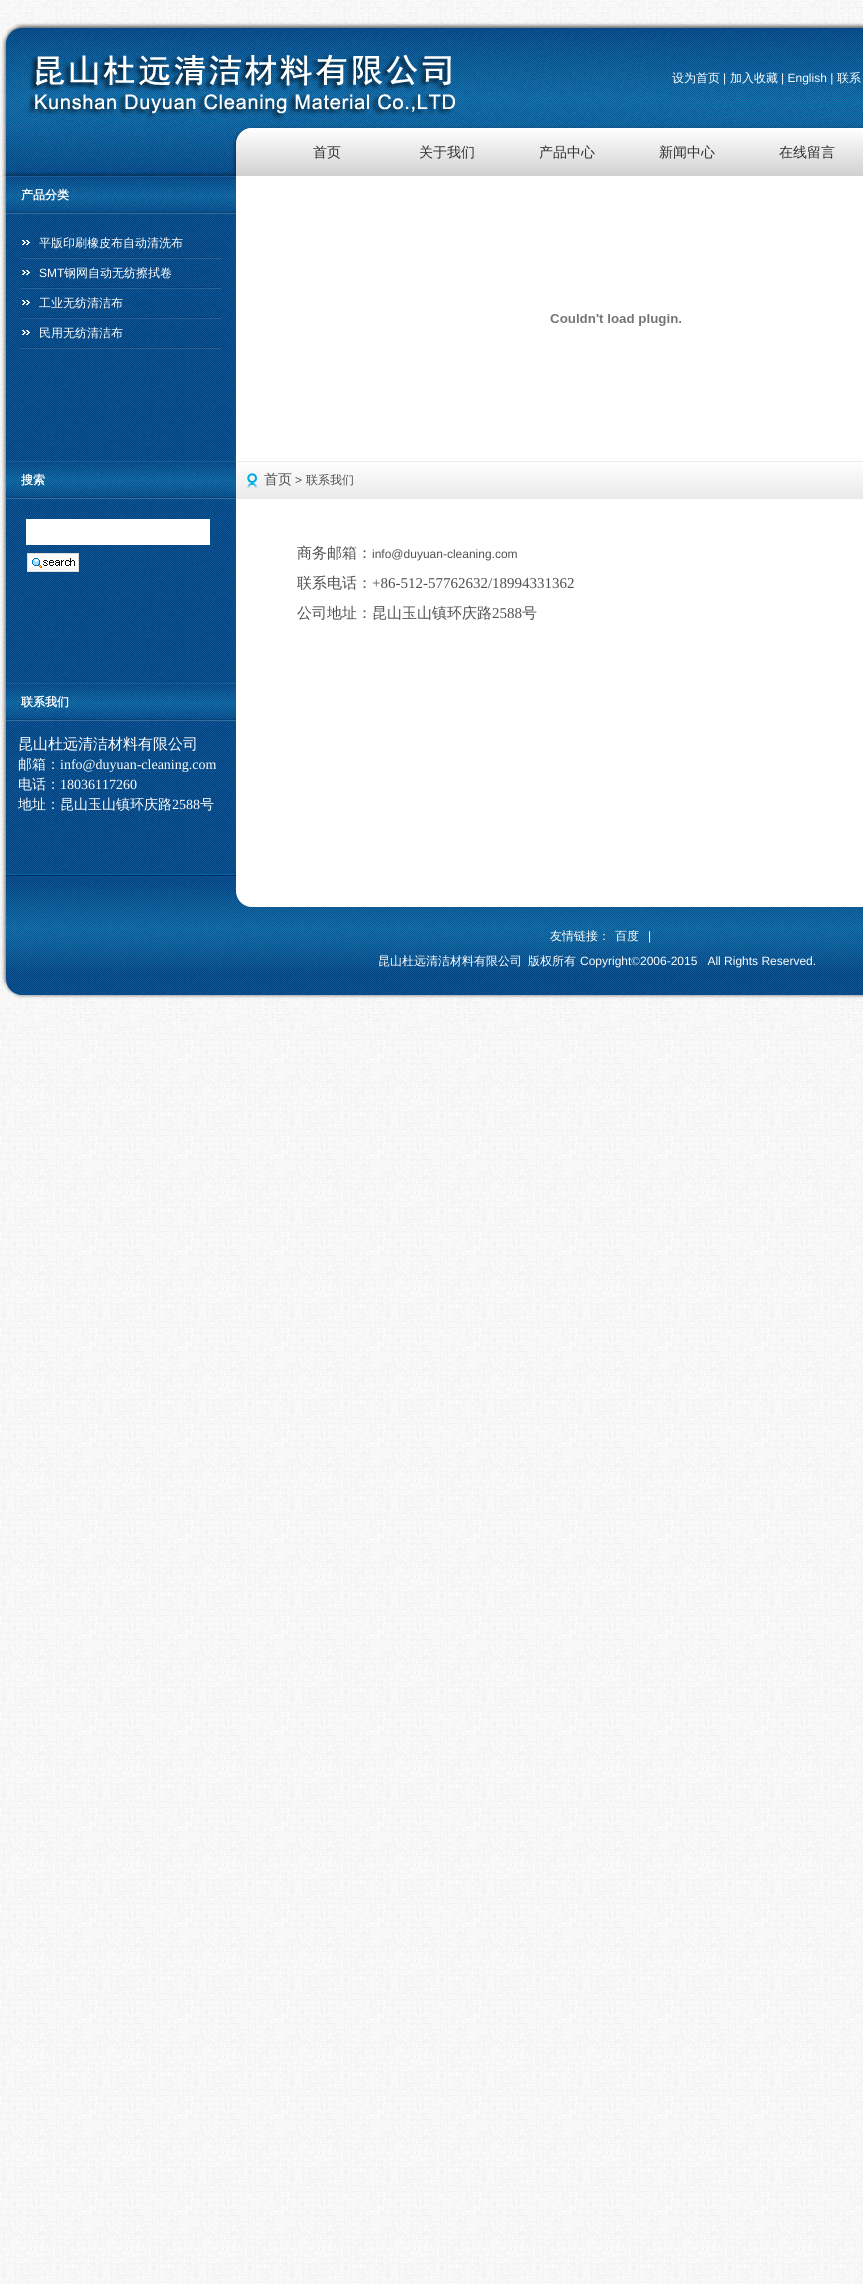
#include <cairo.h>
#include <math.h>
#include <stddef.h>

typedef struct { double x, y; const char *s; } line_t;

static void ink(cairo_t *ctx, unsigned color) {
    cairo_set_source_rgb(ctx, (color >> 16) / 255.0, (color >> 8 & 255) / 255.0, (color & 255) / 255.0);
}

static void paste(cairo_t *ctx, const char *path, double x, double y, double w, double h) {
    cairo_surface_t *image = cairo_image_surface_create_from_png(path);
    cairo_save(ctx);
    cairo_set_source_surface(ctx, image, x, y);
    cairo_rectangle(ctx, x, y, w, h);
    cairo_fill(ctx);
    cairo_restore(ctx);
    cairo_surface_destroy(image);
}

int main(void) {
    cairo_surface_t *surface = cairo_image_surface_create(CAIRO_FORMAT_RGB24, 863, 2284);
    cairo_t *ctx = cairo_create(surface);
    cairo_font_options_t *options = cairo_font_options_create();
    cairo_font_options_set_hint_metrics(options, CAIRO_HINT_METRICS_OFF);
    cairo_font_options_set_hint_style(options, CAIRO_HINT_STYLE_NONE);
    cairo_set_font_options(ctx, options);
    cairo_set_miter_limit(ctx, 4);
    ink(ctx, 0xFFFFFF);
    cairo_paint(ctx);
    paste(ctx, "media/1.png", 0, 1024, 863, 1260);
    paste(ctx, "media/2.png", 0, 176, 863, 698);
    paste(ctx, "media/3.png", 0, 0, 863, 176);
    paste(ctx, "media/4.png", 21, 38, 649, 84);
    cairo_select_font_face(ctx, "WenQuanYi Zen Hei Medium", CAIRO_FONT_SLANT_NORMAL, CAIRO_FONT_WEIGHT_NORMAL);
    cairo_set_font_size(ctx, 12);
    ink(ctx, 0xFFFFFF);
    cairo_move_to(ctx, 672, 82);
    cairo_show_text(ctx, "设为首页");
    cairo_select_font_face(ctx, "Liberation Sans", CAIRO_FONT_SLANT_NORMAL, CAIRO_FONT_WEIGHT_NORMAL);
    cairo_move_to(ctx, 723, 82);
    cairo_show_text(ctx, "|");
    cairo_select_font_face(ctx, "WenQuanYi Zen Hei Medium", CAIRO_FONT_SLANT_NORMAL, CAIRO_FONT_WEIGHT_NORMAL);
    cairo_move_to(ctx, 730, 82);
    cairo_show_text(ctx, "加入收藏");
    cairo_select_font_face(ctx, "Liberation Sans", CAIRO_FONT_SLANT_NORMAL, CAIRO_FONT_WEIGHT_NORMAL);
    cairo_move_to(ctx, 781, 82);
    cairo_show_text(ctx, "| English |");
    cairo_select_font_face(ctx, "WenQuanYi Zen Hei Medium", CAIRO_FONT_SLANT_NORMAL, CAIRO_FONT_WEIGHT_NORMAL);
    cairo_move_to(ctx, 837, 82);
    cairo_show_text(ctx, "联系");
    cairo_set_font_size(ctx, 14);
    ink(ctx, 0x303030);
    {
        static const line_t items[] = {
            {313, 157, "首页"},
            {419, 157, "关于我们"},
            {539, 157, "产品中心"},
            {659, 157, "新闻中心"},
            {779, 157, "在线留言"},
        };
        for (size_t i = 0; i < sizeof items / sizeof *items; i++) {
            cairo_move_to(ctx, items[i].x, items[i].y);
            cairo_show_text(ctx, items[i].s);
        }
    }
    paste(ctx, "media/5.png", 6, 176, 230, 38);
    cairo_select_font_face(ctx, "WenQuanYi Zen Hei", CAIRO_FONT_SLANT_NORMAL, CAIRO_FONT_WEIGHT_BOLD);
    cairo_set_font_size(ctx, 12);
    ink(ctx, 0xFFFFFF);
    cairo_move_to(ctx, 21, 199);
    cairo_show_text(ctx, "产品分类");
    paste(ctx, "media/6.png", 21, 240, 200, 19);
    cairo_select_font_face(ctx, "WenQuanYi Zen Hei Medium", CAIRO_FONT_SLANT_NORMAL, CAIRO_FONT_WEIGHT_NORMAL);
    cairo_move_to(ctx, 39, 247);
    cairo_show_text(ctx, "平版印刷橡皮布自动清洗布");
    paste(ctx, "media/7.png", 21, 270, 200, 19);
    cairo_select_font_face(ctx, "Liberation Sans", CAIRO_FONT_SLANT_NORMAL, CAIRO_FONT_WEIGHT_NORMAL);
    cairo_move_to(ctx, 39, 277);
    cairo_show_text(ctx, "SMT");
    cairo_select_font_face(ctx, "WenQuanYi Zen Hei Medium", CAIRO_FONT_SLANT_NORMAL, CAIRO_FONT_WEIGHT_NORMAL);
    cairo_move_to(ctx, 64, 277);
    cairo_show_text(ctx, "钢网自动无纺擦拭卷");
    paste(ctx, "media/8.png", 21, 300, 200, 19);
    cairo_move_to(ctx, 39, 307);
    cairo_show_text(ctx, "工业无纺清洁布");
    paste(ctx, "media/9.png", 21, 330, 200, 19);
    cairo_move_to(ctx, 39, 337);
    cairo_show_text(ctx, "民用无纺清洁布");
    paste(ctx, "media/10.png", 550, 314, 131, 12);
    paste(ctx, "media/5.png", 6, 461, 230, 38);
    cairo_select_font_face(ctx, "WenQuanYi Zen Hei", CAIRO_FONT_SLANT_NORMAL, CAIRO_FONT_WEIGHT_BOLD);
    cairo_move_to(ctx, 21, 484);
    cairo_show_text(ctx, "搜索");
    cairo_rectangle(ctx, 26, 519, 184, 26);
    cairo_fill(ctx);
    paste(ctx, "media/11.png", 27, 553, 52, 19);
    paste(ctx, "media/12.png", 236, 461, 627, 38);
    cairo_select_font_face(ctx, "WenQuanYi Zen Hei Medium", CAIRO_FONT_SLANT_NORMAL, CAIRO_FONT_WEIGHT_NORMAL);
    cairo_set_font_size(ctx, 14);
    ink(ctx, 0x505050);
    cairo_move_to(ctx, 264, 484);
    cairo_show_text(ctx, "首页");
    cairo_select_font_face(ctx, "Liberation Sans", CAIRO_FONT_SLANT_NORMAL, CAIRO_FONT_WEIGHT_NORMAL);
    cairo_set_font_size(ctx, 12);
    cairo_move_to(ctx, 295, 484);
    cairo_show_text(ctx, ">");
    cairo_select_font_face(ctx, "WenQuanYi Zen Hei Medium", CAIRO_FONT_SLANT_NORMAL, CAIRO_FONT_WEIGHT_NORMAL);
    cairo_move_to(ctx, 306, 484);
    cairo_show_text(ctx, "联系我们");
    cairo_set_font_size(ctx, 15);
    cairo_move_to(ctx, 297, 558);
    cairo_show_text(ctx, "商务邮箱：");
    cairo_select_font_face(ctx, "Liberation Sans", CAIRO_FONT_SLANT_NORMAL, CAIRO_FONT_WEIGHT_NORMAL);
    cairo_set_font_size(ctx, 12);
    cairo_move_to(ctx, 372, 558);
    cairo_show_text(ctx, "info@duyuan-cleaning.com");
    cairo_select_font_face(ctx, "WenQuanYi Zen Hei Medium", CAIRO_FONT_SLANT_NORMAL, CAIRO_FONT_WEIGHT_NORMAL);
    cairo_set_font_size(ctx, 15);
    cairo_move_to(ctx, 297, 588);
    cairo_show_text(ctx, "联系电话：");
    cairo_select_font_face(ctx, "Liberation Serif", CAIRO_FONT_SLANT_NORMAL, CAIRO_FONT_WEIGHT_NORMAL);
    cairo_move_to(ctx, 372, 588);
    cairo_show_text(ctx, "+86-512-57762632/18994331362");
    cairo_select_font_face(ctx, "WenQuanYi Zen Hei Medium", CAIRO_FONT_SLANT_NORMAL, CAIRO_FONT_WEIGHT_NORMAL);
    cairo_move_to(ctx, 297, 618);
    cairo_show_text(ctx, "公司地址：昆山玉山镇环庆路");
    cairo_select_font_face(ctx, "Liberation Serif", CAIRO_FONT_SLANT_NORMAL, CAIRO_FONT_WEIGHT_NORMAL);
    cairo_move_to(ctx, 492, 618);
    cairo_show_text(ctx, "2588");
    cairo_select_font_face(ctx, "WenQuanYi Zen Hei Medium", CAIRO_FONT_SLANT_NORMAL, CAIRO_FONT_WEIGHT_NORMAL);
    cairo_move_to(ctx, 522, 618);
    cairo_show_text(ctx, "号");
    paste(ctx, "media/5.png", 6, 683, 230, 38);
    cairo_select_font_face(ctx, "WenQuanYi Zen Hei", CAIRO_FONT_SLANT_NORMAL, CAIRO_FONT_WEIGHT_BOLD);
    cairo_set_font_size(ctx, 12);
    ink(ctx, 0xFFFFFF);
    cairo_move_to(ctx, 21, 706);
    cairo_show_text(ctx, "联系我们");
    cairo_select_font_face(ctx, "WenQuanYi Zen Hei Medium", CAIRO_FONT_SLANT_NORMAL, CAIRO_FONT_WEIGHT_NORMAL);
    cairo_set_font_size(ctx, 15);
    cairo_move_to(ctx, 18, 749);
    cairo_show_text(ctx, "昆山杜远清洁材料有限公司");
    cairo_set_font_size(ctx, 14);
    cairo_move_to(ctx, 18, 769);
    cairo_show_text(ctx, "邮箱：");
    cairo_select_font_face(ctx, "Liberation Serif", CAIRO_FONT_SLANT_NORMAL, CAIRO_FONT_WEIGHT_NORMAL);
    cairo_move_to(ctx, 60, 769);
    cairo_show_text(ctx, "info@duyuan-cleaning.com");
    cairo_select_font_face(ctx, "WenQuanYi Zen Hei Medium", CAIRO_FONT_SLANT_NORMAL, CAIRO_FONT_WEIGHT_NORMAL);
    cairo_move_to(ctx, 18, 789);
    cairo_show_text(ctx, "电话：");
    cairo_select_font_face(ctx, "Liberation Serif", CAIRO_FONT_SLANT_NORMAL, CAIRO_FONT_WEIGHT_NORMAL);
    cairo_move_to(ctx, 60, 789);
    cairo_show_text(ctx, "18036117260");
    cairo_select_font_face(ctx, "WenQuanYi Zen Hei Medium", CAIRO_FONT_SLANT_NORMAL, CAIRO_FONT_WEIGHT_NORMAL);
    cairo_move_to(ctx, 18, 809);
    cairo_show_text(ctx, "地址：昆山玉山镇环庆路");
    cairo_select_font_face(ctx, "Liberation Serif", CAIRO_FONT_SLANT_NORMAL, CAIRO_FONT_WEIGHT_NORMAL);
    cairo_move_to(ctx, 172, 809);
    cairo_show_text(ctx, "2588");
    cairo_select_font_face(ctx, "WenQuanYi Zen Hei Medium", CAIRO_FONT_SLANT_NORMAL, CAIRO_FONT_WEIGHT_NORMAL);
    cairo_move_to(ctx, 200, 809);
    cairo_show_text(ctx, "号");
    paste(ctx, "media/13.png", 0, 874, 863, 150);
    cairo_set_font_size(ctx, 12);
    cairo_move_to(ctx, 550, 940);
    cairo_show_text(ctx, "友情链接：");
    cairo_move_to(ctx, 615, 940);
    cairo_show_text(ctx, "百度");
    cairo_select_font_face(ctx, "Liberation Sans", CAIRO_FONT_SLANT_NORMAL, CAIRO_FONT_WEIGHT_NORMAL);
    cairo_move_to(ctx, 648, 940);
    cairo_show_text(ctx, "|");
    cairo_select_font_face(ctx, "WenQuanYi Zen Hei Medium", CAIRO_FONT_SLANT_NORMAL, CAIRO_FONT_WEIGHT_NORMAL);
    cairo_move_to(ctx, 378, 965);
    cairo_show_text(ctx, "昆山杜远清洁材料有限公司");
    cairo_move_to(ctx, 528, 965);
    cairo_show_text(ctx, "版权所有");
    cairo_select_font_face(ctx, "Liberation Sans", CAIRO_FONT_SLANT_NORMAL, CAIRO_FONT_WEIGHT_NORMAL);
    cairo_move_to(ctx, 580, 965);
    cairo_show_text(ctx, "Copyright");
    cairo_select_font_face(ctx, "Liberation Serif", CAIRO_FONT_SLANT_NORMAL, CAIRO_FONT_WEIGHT_NORMAL);
    cairo_move_to(ctx, 631, 965);
    cairo_show_text(ctx, "©");
    cairo_select_font_face(ctx, "Liberation Sans", CAIRO_FONT_SLANT_NORMAL, CAIRO_FONT_WEIGHT_NORMAL);
    cairo_move_to(ctx, 640, 965);
    cairo_show_text(ctx, "2006-2015   All Rights Reserved.");
    cairo_surface_write_to_png(surface, "image.png");
    cairo_font_options_destroy(options);
    cairo_destroy(ctx);
    cairo_surface_destroy(surface);
    return 0;
}
